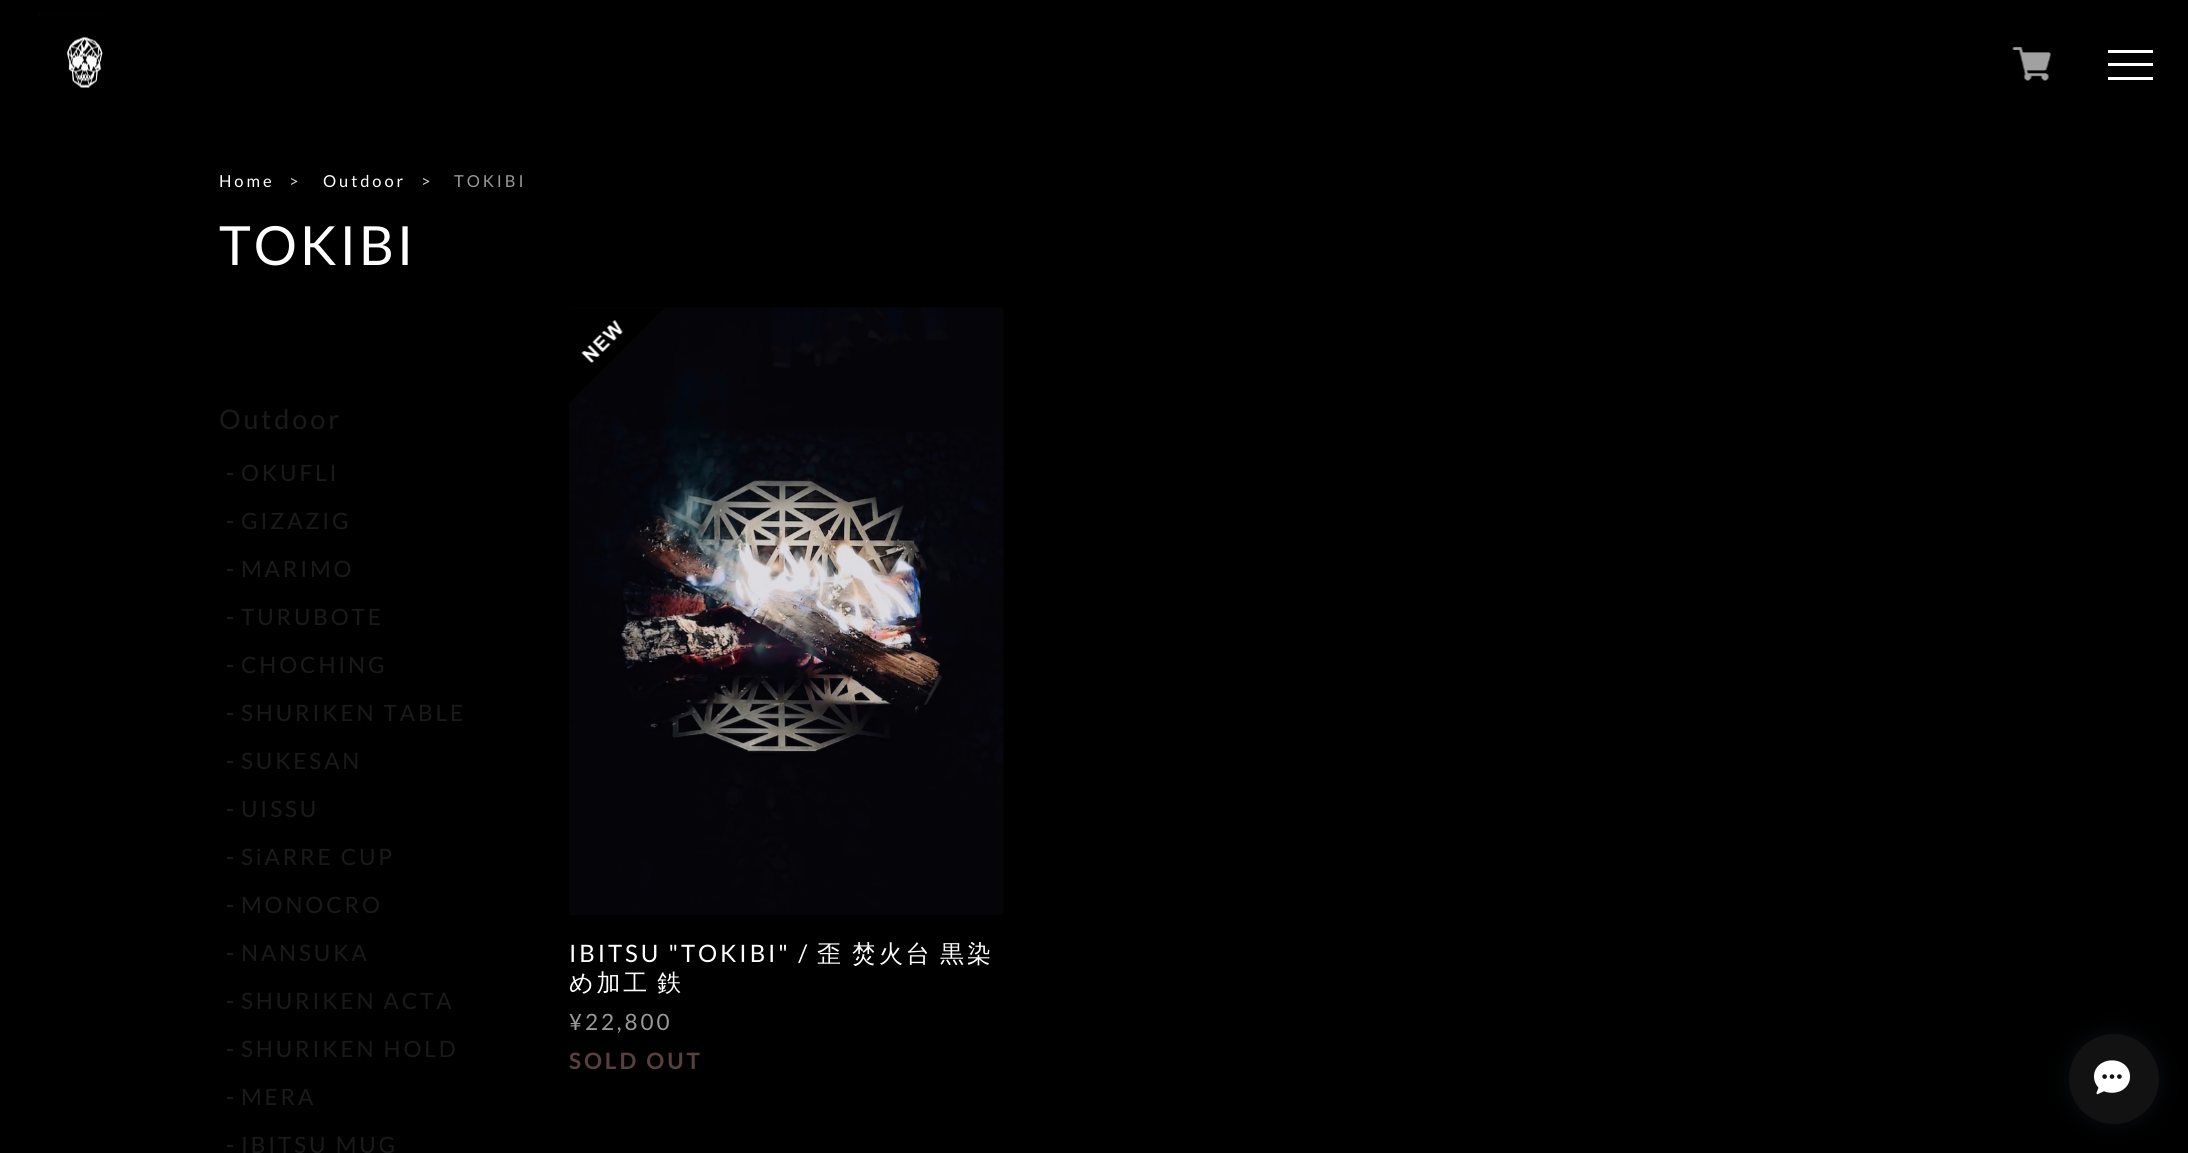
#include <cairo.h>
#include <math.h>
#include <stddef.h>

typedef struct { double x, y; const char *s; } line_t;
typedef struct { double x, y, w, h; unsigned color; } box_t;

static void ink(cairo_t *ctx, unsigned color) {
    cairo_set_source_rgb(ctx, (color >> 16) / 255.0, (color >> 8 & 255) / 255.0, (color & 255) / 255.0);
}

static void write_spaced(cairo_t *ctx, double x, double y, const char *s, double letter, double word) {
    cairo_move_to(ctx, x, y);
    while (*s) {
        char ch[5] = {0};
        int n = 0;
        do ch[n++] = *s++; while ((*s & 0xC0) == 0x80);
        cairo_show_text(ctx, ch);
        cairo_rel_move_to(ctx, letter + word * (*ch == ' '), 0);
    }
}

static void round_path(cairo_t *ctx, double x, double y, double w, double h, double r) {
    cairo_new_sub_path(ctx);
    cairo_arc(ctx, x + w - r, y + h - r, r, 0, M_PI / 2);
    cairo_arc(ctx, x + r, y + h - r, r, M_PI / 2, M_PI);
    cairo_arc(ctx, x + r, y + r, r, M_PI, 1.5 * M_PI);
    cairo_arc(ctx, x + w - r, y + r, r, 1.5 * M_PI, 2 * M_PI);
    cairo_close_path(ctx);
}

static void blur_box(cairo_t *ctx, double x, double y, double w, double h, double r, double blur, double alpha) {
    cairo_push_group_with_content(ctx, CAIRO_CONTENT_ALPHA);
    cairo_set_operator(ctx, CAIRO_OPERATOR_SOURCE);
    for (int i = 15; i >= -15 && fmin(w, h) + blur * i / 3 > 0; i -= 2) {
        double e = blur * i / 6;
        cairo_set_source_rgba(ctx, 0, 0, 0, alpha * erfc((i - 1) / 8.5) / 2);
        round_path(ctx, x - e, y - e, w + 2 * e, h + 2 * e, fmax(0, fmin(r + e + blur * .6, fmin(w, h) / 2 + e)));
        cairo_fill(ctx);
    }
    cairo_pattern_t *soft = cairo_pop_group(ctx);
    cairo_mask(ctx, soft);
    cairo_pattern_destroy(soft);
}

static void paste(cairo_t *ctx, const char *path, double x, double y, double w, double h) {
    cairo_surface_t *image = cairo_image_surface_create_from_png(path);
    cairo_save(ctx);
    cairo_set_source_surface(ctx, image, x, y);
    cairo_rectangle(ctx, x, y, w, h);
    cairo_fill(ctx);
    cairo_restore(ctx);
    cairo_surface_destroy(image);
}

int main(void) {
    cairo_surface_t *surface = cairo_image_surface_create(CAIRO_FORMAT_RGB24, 2188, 1153);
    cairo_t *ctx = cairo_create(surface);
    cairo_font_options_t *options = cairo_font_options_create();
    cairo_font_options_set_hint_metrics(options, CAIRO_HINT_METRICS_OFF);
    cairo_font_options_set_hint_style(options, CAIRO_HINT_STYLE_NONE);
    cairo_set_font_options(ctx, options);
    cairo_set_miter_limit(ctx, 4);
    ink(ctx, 0x000000);
    cairo_paint(ctx);
    paste(ctx, "media/1.png", 38, 13, 65, 75);
    paste(ctx, "media/2.png", 2012, 47, 39, 34);
    {
        static const box_t items[] = {
            {2108, 50, 45, 3, 0xFFFFFF},
            {2108, 63, 45, 3, 0xFFFFFF},
            {2108, 77, 45, 3, 0xFFFFFF},
        };
        for (size_t i = 0; i < sizeof items / sizeof *items; i++) {
            ink(ctx, items[i].color);
            cairo_rectangle(ctx, items[i].x, items[i].y, items[i].w, items[i].h);
            cairo_fill(ctx);
        }
    }
    cairo_select_font_face(ctx, "Lato", CAIRO_FONT_SLANT_NORMAL, CAIRO_FONT_WEIGHT_NORMAL);
    cairo_set_font_size(ctx, 16.5);
    write_spaced(ctx, 219, 187, "Home", 2.9, 0);
    ink(ctx, 0xCCCCCC);
    write_spaced(ctx, 289, 187, ">", 2.9, 0);
    ink(ctx, 0xFFFFFF);
    write_spaced(ctx, 323, 187, "Outdoor", 2.9, 0);
    ink(ctx, 0xCCCCCC);
    write_spaced(ctx, 421, 187, ">", 2.9, 0);
    ink(ctx, 0x999999);
    write_spaced(ctx, 454, 187, "TOKIBI", 2.9, 0);
    cairo_set_font_size(ctx, 54);
    ink(ctx, 0xFFFFFF);
    write_spaced(ctx, 219, 265, "TOKIBI", 2.9, 0);
    cairo_set_font_size(ctx, 27);
    ink(ctx, 0x1A1A1A);
    write_spaced(ctx, 219, 429, "Outdoor", 2.9, 0);
    cairo_rectangle(ctx, 227, 473, 6, 2);
    cairo_fill(ctx);
    cairo_set_font_size(ctx, 22.5);
    write_spaced(ctx, 241, 481, "OKUFLI", 2.9, 0);
    cairo_rectangle(ctx, 227, 521, 6, 2);
    cairo_fill(ctx);
    write_spaced(ctx, 241, 529, "GIZAZIG", 2.9, 0);
    cairo_rectangle(ctx, 227, 569, 6, 2);
    cairo_fill(ctx);
    write_spaced(ctx, 241, 577, "MARIMO", 2.9, 0);
    cairo_rectangle(ctx, 227, 617, 6, 2);
    cairo_fill(ctx);
    write_spaced(ctx, 241, 625, "TURUBOTE", 2.9, 0);
    cairo_rectangle(ctx, 227, 665, 6, 2);
    cairo_fill(ctx);
    write_spaced(ctx, 241, 673, "CHOCHING", 2.9, 0);
    cairo_rectangle(ctx, 227, 713, 6, 2);
    cairo_fill(ctx);
    write_spaced(ctx, 241, 721, "SHURIKEN TABLE", 2.9, 0);
    cairo_rectangle(ctx, 227, 761, 6, 2);
    cairo_fill(ctx);
    write_spaced(ctx, 241, 769, "SUKESAN", 2.9, 0);
    cairo_rectangle(ctx, 227, 809, 6, 2);
    cairo_fill(ctx);
    write_spaced(ctx, 241, 817, "UISSU", 2.9, 0);
    cairo_rectangle(ctx, 227, 857, 6, 2);
    cairo_fill(ctx);
    write_spaced(ctx, 241, 865, "SiARRE CUP", 2.9, 0);
    cairo_rectangle(ctx, 227, 905, 6, 2);
    cairo_fill(ctx);
    write_spaced(ctx, 241, 913, "MONOCRO", 2.9, 0);
    cairo_rectangle(ctx, 227, 953, 6, 2);
    cairo_fill(ctx);
    write_spaced(ctx, 241, 961, "NANSUKA", 2.9, 0);
    cairo_rectangle(ctx, 227, 1001, 6, 2);
    cairo_fill(ctx);
    write_spaced(ctx, 241, 1009, "SHURIKEN ACTA", 2.9, 0);
    cairo_rectangle(ctx, 227, 1049, 6, 2);
    cairo_fill(ctx);
    write_spaced(ctx, 241, 1057, "SHURIKEN HOLD", 2.9, 0);
    cairo_rectangle(ctx, 227, 1097, 6, 2);
    cairo_fill(ctx);
    write_spaced(ctx, 241, 1105, "MERA", 2.9, 0);
    cairo_rectangle(ctx, 227, 1145, 6, 2);
    cairo_fill(ctx);
    write_spaced(ctx, 241, 1153, "IBITSU MUG", 2.9, 0);
    paste(ctx, "media/3.png", 569, 307, 435, 608);
    paste(ctx, "media/4.png", 569, 308, 95, 95);
    cairo_set_font_size(ctx, 24);
    ink(ctx, 0xFFFFFF);
    write_spaced(ctx, 569, 962, "IBITSU \"TOKIBI\" /", 2.9, 0);
    cairo_select_font_face(ctx, "WenQuanYi Zen Hei Medium", CAIRO_FONT_SLANT_NORMAL, CAIRO_FONT_WEIGHT_NORMAL);
    {
        static const line_t items[] = {
            {817, 962, "歪"},
            {852, 962, "焚火台"},
            {940, 962, "黒染"},
        };
        for (size_t i = 0; i < sizeof items / sizeof *items; i++) {
            write_spaced(ctx, items[i].x, items[i].y, items[i].s, 2.9, 0);
        }
    }
    write_spaced(ctx, 569, 991, "め加工 鉄", 2.9, -3);
    cairo_select_font_face(ctx, "Lato", CAIRO_FONT_SLANT_NORMAL, CAIRO_FONT_WEIGHT_NORMAL);
    cairo_set_font_size(ctx, 22.5);
    ink(ctx, 0x999999);
    write_spaced(ctx, 569, 1030, "¥22,800", 2.9, 0);
    cairo_select_font_face(ctx, "Lato", CAIRO_FONT_SLANT_NORMAL, CAIRO_FONT_WEIGHT_BOLD);
    ink(ctx, 0x56413F);
    write_spaced(ctx, 569, 1069, "SOLD OUT", 2.9, 0);
    ink(ctx, 0x334258);
    blur_box(ctx, 2069, 1034, 90, 90, 45, 11, 0.2);
    ink(ctx, 0x121212);
    cairo_arc(ctx, 2114, 1079, 45, 0, 2 * M_PI);
    cairo_fill(ctx);
    paste(ctx, "media/5.png", 2094, 1060, 36, 35);
    cairo_surface_write_to_png(surface, "image.png");
    cairo_font_options_destroy(options);
    cairo_destroy(ctx);
    cairo_surface_destroy(surface);
    return 0;
}
